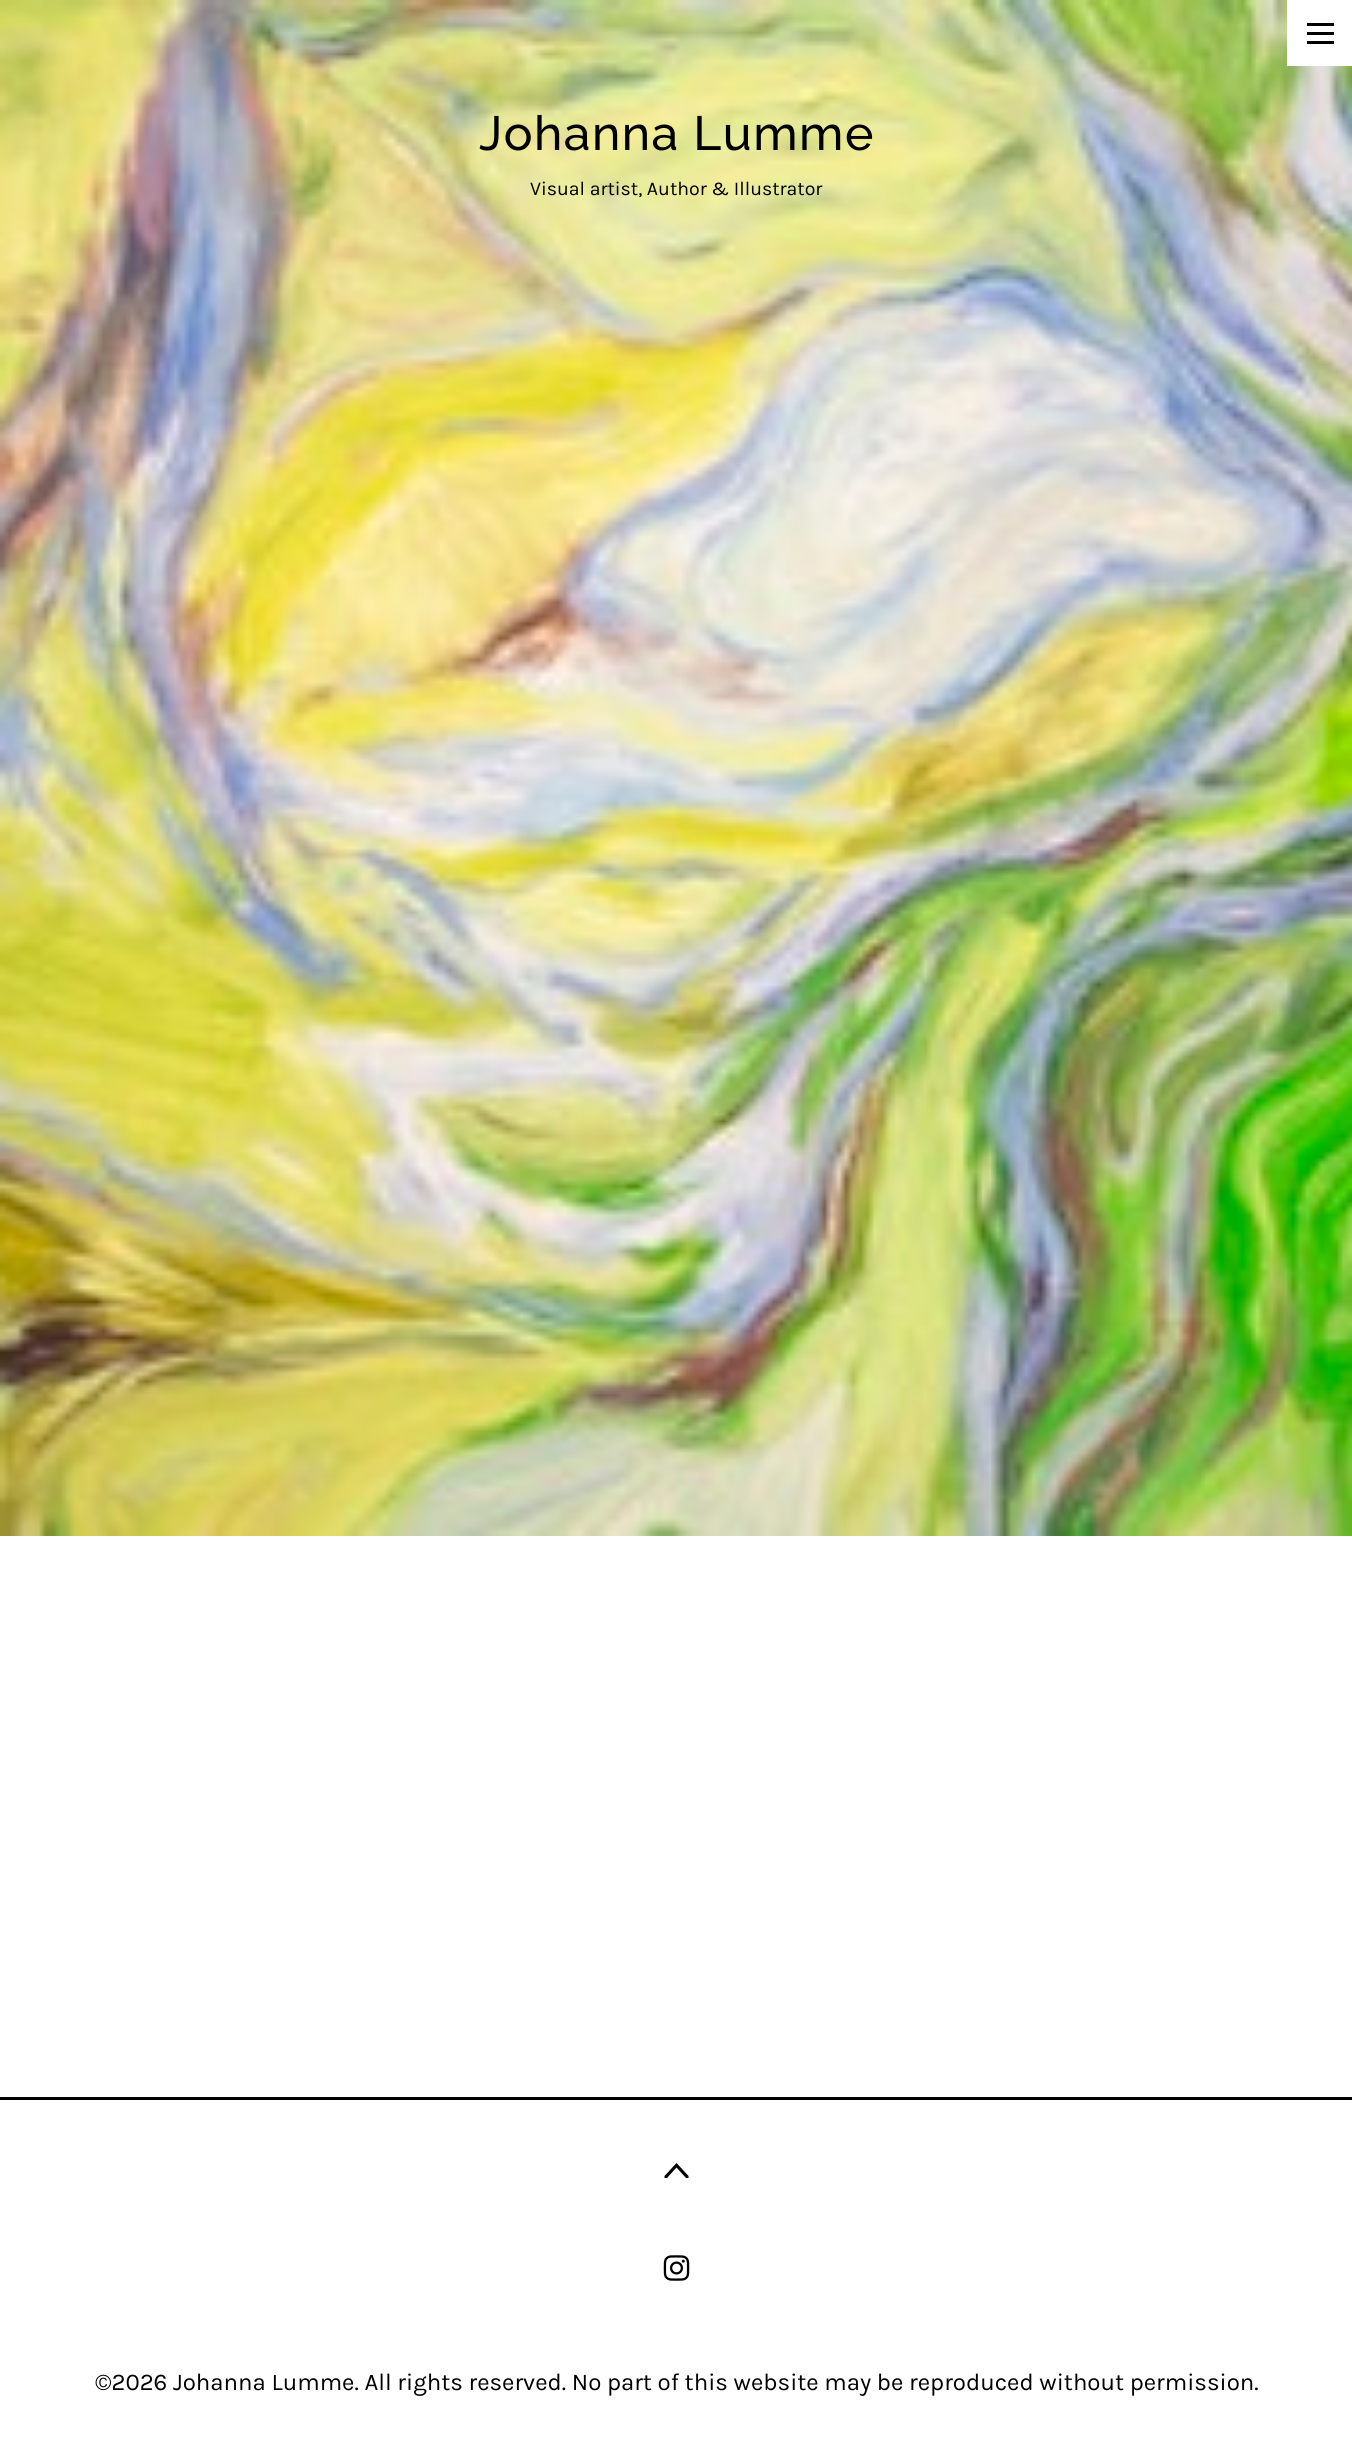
#include <cairo.h>
#include <math.h>
#include <stddef.h>

typedef struct { double x, y, w, h; unsigned color; } box_t;

static void ink(cairo_t *ctx, unsigned color) {
    cairo_set_source_rgb(ctx, (color >> 16) / 255.0, (color >> 8 & 255) / 255.0, (color & 255) / 255.0);
}

static void write_spaced(cairo_t *ctx, double x, double y, const char *s, double letter, double word) {
    cairo_move_to(ctx, x, y);
    while (*s) {
        char ch[5] = {0};
        int n = 0;
        do ch[n++] = *s++; while ((*s & 0xC0) == 0x80);
        cairo_show_text(ctx, ch);
        cairo_rel_move_to(ctx, letter + word * (*ch == ' '), 0);
    }
}

static void paste(cairo_t *ctx, const char *path, double x, double y, double w, double h) {
    cairo_surface_t *image = cairo_image_surface_create_from_png(path);
    cairo_save(ctx);
    cairo_set_source_surface(ctx, image, x, y);
    cairo_rectangle(ctx, x, y, w, h);
    cairo_fill(ctx);
    cairo_restore(ctx);
    cairo_surface_destroy(image);
}

int main(void) {
    cairo_surface_t *surface = cairo_image_surface_create(CAIRO_FORMAT_RGB24, 1352, 2441);
    cairo_t *ctx = cairo_create(surface);
    cairo_font_options_t *options = cairo_font_options_create();
    cairo_font_options_set_hint_metrics(options, CAIRO_HINT_METRICS_OFF);
    cairo_font_options_set_hint_style(options, CAIRO_HINT_STYLE_NONE);
    cairo_set_font_options(ctx, options);
    cairo_set_miter_limit(ctx, 4);
    ink(ctx, 0xFFFFFF);
    cairo_paint(ctx);
    paste(ctx, "media/1.png", 0, 0, 1352, 1536);
    {
        static const box_t items[] = {
            {1287, 0, 65, 66, 0xFFFFFF},
            {1307, 32, 27, 3, 0x000000},
            {1307, 23, 27, 3, 0x000000},
            {1307, 41, 27, 3, 0x000000},
        };
        for (size_t i = 0; i < sizeof items / sizeof *items; i++) {
            ink(ctx, items[i].color);
            cairo_rectangle(ctx, items[i].x, items[i].y, items[i].w, items[i].h);
            cairo_fill(ctx);
        }
    }
    cairo_select_font_face(ctx, "Raleway Medium", CAIRO_FONT_SLANT_NORMAL, CAIRO_FONT_WEIGHT_NORMAL);
    cairo_set_font_size(ctx, 48);
    write_spaced(ctx, 479, 150, "Johanna Lumme", 1.5, 0);
    cairo_select_font_face(ctx, "Karla", CAIRO_FONT_SLANT_NORMAL, CAIRO_FONT_WEIGHT_NORMAL);
    cairo_set_font_size(ctx, 19.5);
    cairo_move_to(ctx, 530, 195);
    cairo_show_text(ctx, "Visual artist, Author & Illustrator");
    cairo_rectangle(ctx, 0, 2097, 1352, 3);
    cairo_fill(ctx);
    cairo_new_path(ctx);
    cairo_move_to(ctx, 686, 2178);
    cairo_line_to(ctx, 676.5, 2167.5);
    cairo_line_to(ctx, 667, 2178);
    cairo_line_to(ctx, 664.5, 2178);
    cairo_line_to(ctx, 664.5, 2176);
    cairo_line_to(ctx, 676.5, 2163);
    cairo_line_to(ctx, 688.5, 2176);
    cairo_line_to(ctx, 688.5, 2178);
    cairo_close_path(ctx);
    cairo_fill(ctx);
    paste(ctx, "media/2.png", 663, 2255, 27, 26);
    cairo_set_font_size(ctx, 24);
    cairo_move_to(ctx, 95, 2390);
    cairo_show_text(ctx, "©2026 Johanna Lumme. All rights reserved. No part of this website may be reproduced without permission.");
    cairo_surface_write_to_png(surface, "image.png");
    cairo_font_options_destroy(options);
    cairo_destroy(ctx);
    cairo_surface_destroy(surface);
    return 0;
}
